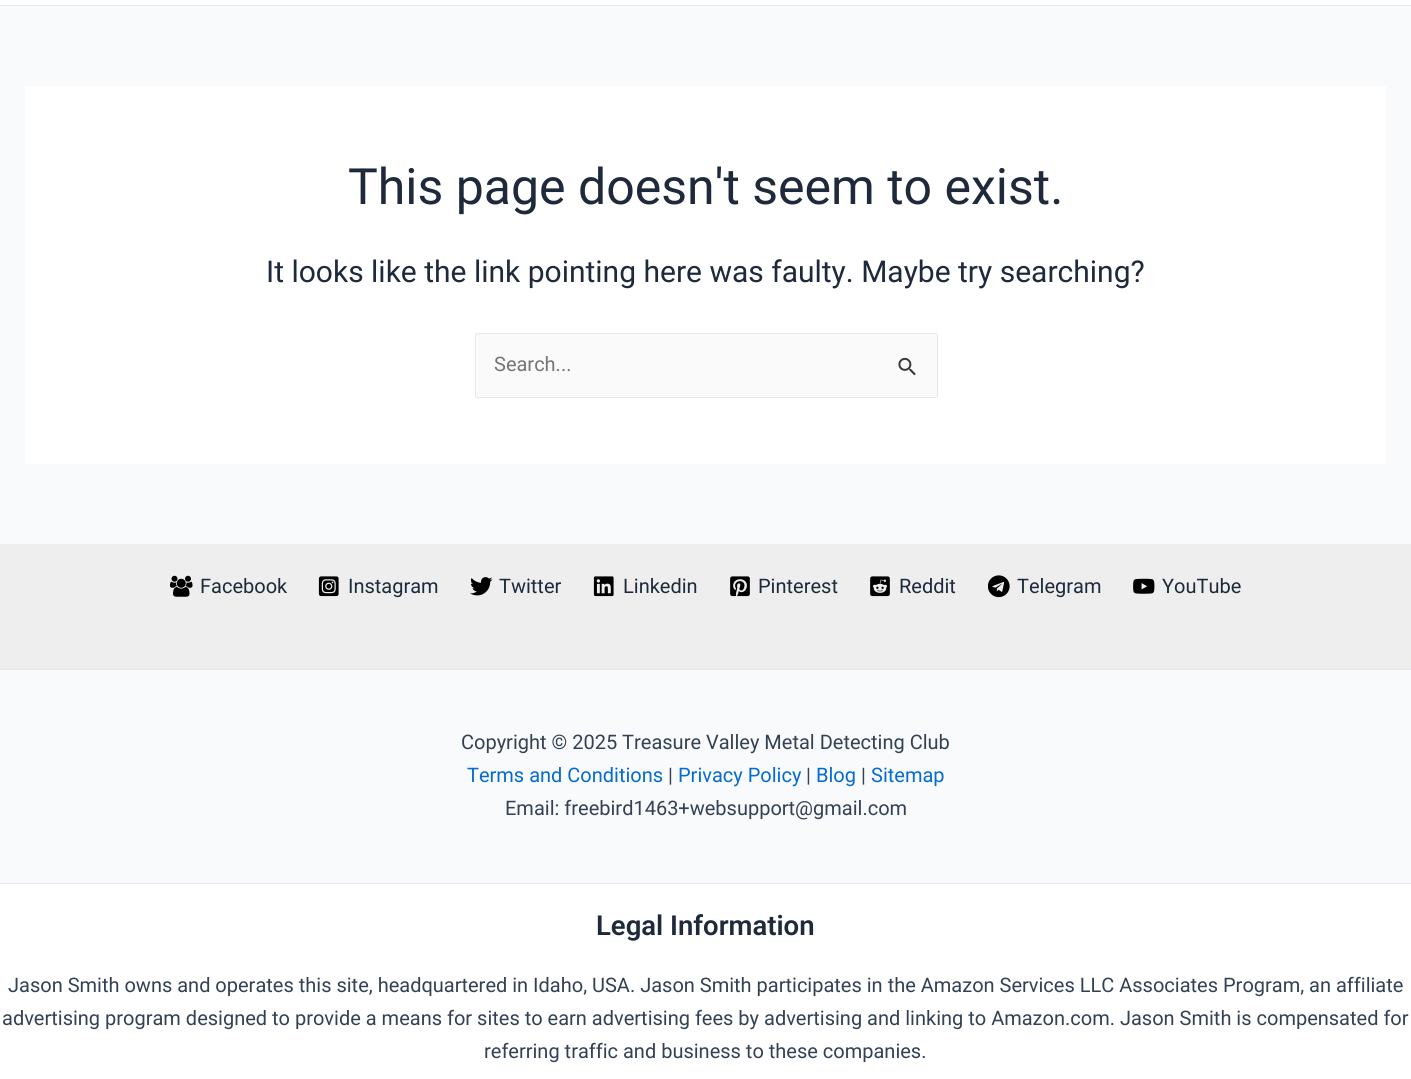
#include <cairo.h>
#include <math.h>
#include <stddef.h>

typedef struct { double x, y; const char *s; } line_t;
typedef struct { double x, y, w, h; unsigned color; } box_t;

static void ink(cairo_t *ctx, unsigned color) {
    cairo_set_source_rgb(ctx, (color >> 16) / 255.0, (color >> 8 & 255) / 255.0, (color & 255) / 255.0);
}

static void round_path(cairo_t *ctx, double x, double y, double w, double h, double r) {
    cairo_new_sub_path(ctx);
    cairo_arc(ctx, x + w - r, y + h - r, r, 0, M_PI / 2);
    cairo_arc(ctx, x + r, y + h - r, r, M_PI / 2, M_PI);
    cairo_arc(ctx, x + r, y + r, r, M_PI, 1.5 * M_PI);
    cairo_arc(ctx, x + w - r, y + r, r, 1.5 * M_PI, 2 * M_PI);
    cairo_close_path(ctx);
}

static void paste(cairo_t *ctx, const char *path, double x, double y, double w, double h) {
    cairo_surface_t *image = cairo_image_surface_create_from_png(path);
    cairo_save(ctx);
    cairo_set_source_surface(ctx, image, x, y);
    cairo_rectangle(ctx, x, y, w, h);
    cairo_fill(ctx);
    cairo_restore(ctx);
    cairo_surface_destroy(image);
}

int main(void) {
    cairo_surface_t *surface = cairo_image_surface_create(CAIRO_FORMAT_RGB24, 1411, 1079);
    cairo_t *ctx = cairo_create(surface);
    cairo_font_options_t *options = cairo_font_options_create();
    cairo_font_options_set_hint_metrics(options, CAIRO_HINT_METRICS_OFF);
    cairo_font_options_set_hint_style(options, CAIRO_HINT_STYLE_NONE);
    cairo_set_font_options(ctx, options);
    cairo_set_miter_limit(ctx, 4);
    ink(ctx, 0xF9FAFB);
    cairo_paint(ctx);
    {
        static const box_t items[] = {
            {0, 0, 1411, 5, 0xFFFFFF},
            {0, 5, 1411, 1, 0xE2E8F0},
            {25, 86, 1361, 378, 0xFFFFFF},
        };
        for (size_t i = 0; i < sizeof items / sizeof *items; i++) {
            ink(ctx, items[i].color);
            cairo_rectangle(ctx, items[i].x, items[i].y, items[i].w, items[i].h);
            cairo_fill(ctx);
        }
    }
    cairo_select_font_face(ctx, "Roboto", CAIRO_FONT_SLANT_NORMAL, CAIRO_FONT_WEIGHT_NORMAL);
    cairo_set_font_size(ctx, 50);
    ink(ctx, 0x1E293B);
    cairo_move_to(ctx, 348, 204);
    cairo_show_text(ctx, "This page doesn't seem to exist.");
    cairo_set_font_size(ctx, 30);
    cairo_move_to(ctx, 266, 282);
    cairo_show_text(ctx, "It looks like the link pointing here was faulty. Maybe try searching?");
    ink(ctx, 0xFAFAFA);
    round_path(ctx, 475.5, 333.5, 462, 64, 2);
    cairo_fill_preserve(ctx);
    ink(ctx, 0xE2E8F0);
    cairo_set_line_width(ctx, 1);
    cairo_stroke(ctx);
    cairo_set_font_size(ctx, 20);
    ink(ctx, 0x757575);
    cairo_move_to(ctx, 494, 371);
    cairo_show_text(ctx, "Search...");
    paste(ctx, "media/1.png", 898, 357, 18, 19);
    ink(ctx, 0xEEEEEE);
    cairo_rectangle(ctx, 0, 544, 1411, 125);
    cairo_fill(ctx);
    paste(ctx, "media/2.png", 170, 575, 23, 22);
    ink(ctx, 0x1E293B);
    cairo_move_to(ctx, 200, 593);
    cairo_show_text(ctx, "Facebook");
    paste(ctx, "media/3.png", 318, 576, 21, 21);
    cairo_move_to(ctx, 348, 593);
    cairo_show_text(ctx, "Instagram");
    paste(ctx, "media/4.png", 470, 577, 23, 19);
    cairo_move_to(ctx, 499, 593);
    cairo_show_text(ctx, "Twitter");
    paste(ctx, "media/5.png", 593, 576, 21, 21);
    cairo_move_to(ctx, 623, 593);
    cairo_show_text(ctx, "Linkedin");
    paste(ctx, "media/6.png", 730, 576, 20, 21);
    cairo_move_to(ctx, 758, 593);
    cairo_show_text(ctx, "Pinterest");
    paste(ctx, "media/7.png", 870, 576, 20, 21);
    cairo_move_to(ctx, 899, 593);
    cairo_show_text(ctx, "Reddit");
    paste(ctx, "media/8.png", 988, 575, 22, 23);
    cairo_move_to(ctx, 1017, 593);
    cairo_show_text(ctx, "Telegram");
    paste(ctx, "media/9.png", 1133, 578, 22, 16);
    cairo_move_to(ctx, 1162, 593);
    cairo_show_text(ctx, "YouTube");
    ink(ctx, 0xE2E8F0);
    cairo_rectangle(ctx, 0, 669, 1411, 1);
    cairo_fill(ctx);
    ink(ctx, 0x334155);
    cairo_move_to(ctx, 461, 749);
    cairo_show_text(ctx, "Copyright © 2025 Treasure Valley Metal Detecting Club");
    ink(ctx, 0x046BD2);
    cairo_move_to(ctx, 467, 782);
    cairo_show_text(ctx, "Terms and Conditions");
    ink(ctx, 0x334155);
    cairo_move_to(ctx, 668, 782);
    cairo_show_text(ctx, "|");
    ink(ctx, 0x046BD2);
    cairo_move_to(ctx, 678, 782);
    cairo_show_text(ctx, "Privacy Policy");
    ink(ctx, 0x334155);
    cairo_move_to(ctx, 806, 782);
    cairo_show_text(ctx, "|");
    ink(ctx, 0x046BD2);
    cairo_move_to(ctx, 816, 782);
    cairo_show_text(ctx, "Blog");
    ink(ctx, 0x334155);
    cairo_move_to(ctx, 861, 782);
    cairo_show_text(ctx, "|");
    ink(ctx, 0x046BD2);
    cairo_move_to(ctx, 871, 782);
    cairo_show_text(ctx, "Sitemap");
    ink(ctx, 0x334155);
    cairo_move_to(ctx, 505, 815);
    cairo_show_text(ctx, "Email: freebird1463+websupport@gmail.com");
    ink(ctx, 0xFFFFFF);
    cairo_rectangle(ctx, 0, 884, 1411, 195);
    cairo_fill(ctx);
    ink(ctx, 0xE2E8F0);
    cairo_rectangle(ctx, 0, 883, 1411, 1);
    cairo_fill(ctx);
    cairo_select_font_face(ctx, "Roboto SemiBold", CAIRO_FONT_SLANT_NORMAL, CAIRO_FONT_WEIGHT_NORMAL);
    cairo_set_font_size(ctx, 27.5);
    ink(ctx, 0x1E293B);
    cairo_move_to(ctx, 596, 935);
    cairo_show_text(ctx, "Legal Information");
    cairo_select_font_face(ctx, "Roboto", CAIRO_FONT_SLANT_NORMAL, CAIRO_FONT_WEIGHT_NORMAL);
    cairo_set_font_size(ctx, 20);
    ink(ctx, 0x334155);
    {
        static const line_t items[] = {
            {8, 992, "Jason Smith owns and operates this site, headquartered in Idaho, USA. Jason Smith participates in the Amazon Services LLC Associates Program, an affiliate"},
            {2, 1025, "advertising program designed to provide a means for sites to earn advertising fees by advertising and linking to Amazon.com. Jason Smith is compensated for"},
            {484, 1058, "referring traffic and business to these companies."},
        };
        for (size_t i = 0; i < sizeof items / sizeof *items; i++) {
            cairo_move_to(ctx, items[i].x, items[i].y);
            cairo_show_text(ctx, items[i].s);
        }
    }
    cairo_surface_write_to_png(surface, "image.png");
    cairo_font_options_destroy(options);
    cairo_destroy(ctx);
    cairo_surface_destroy(surface);
    return 0;
}
